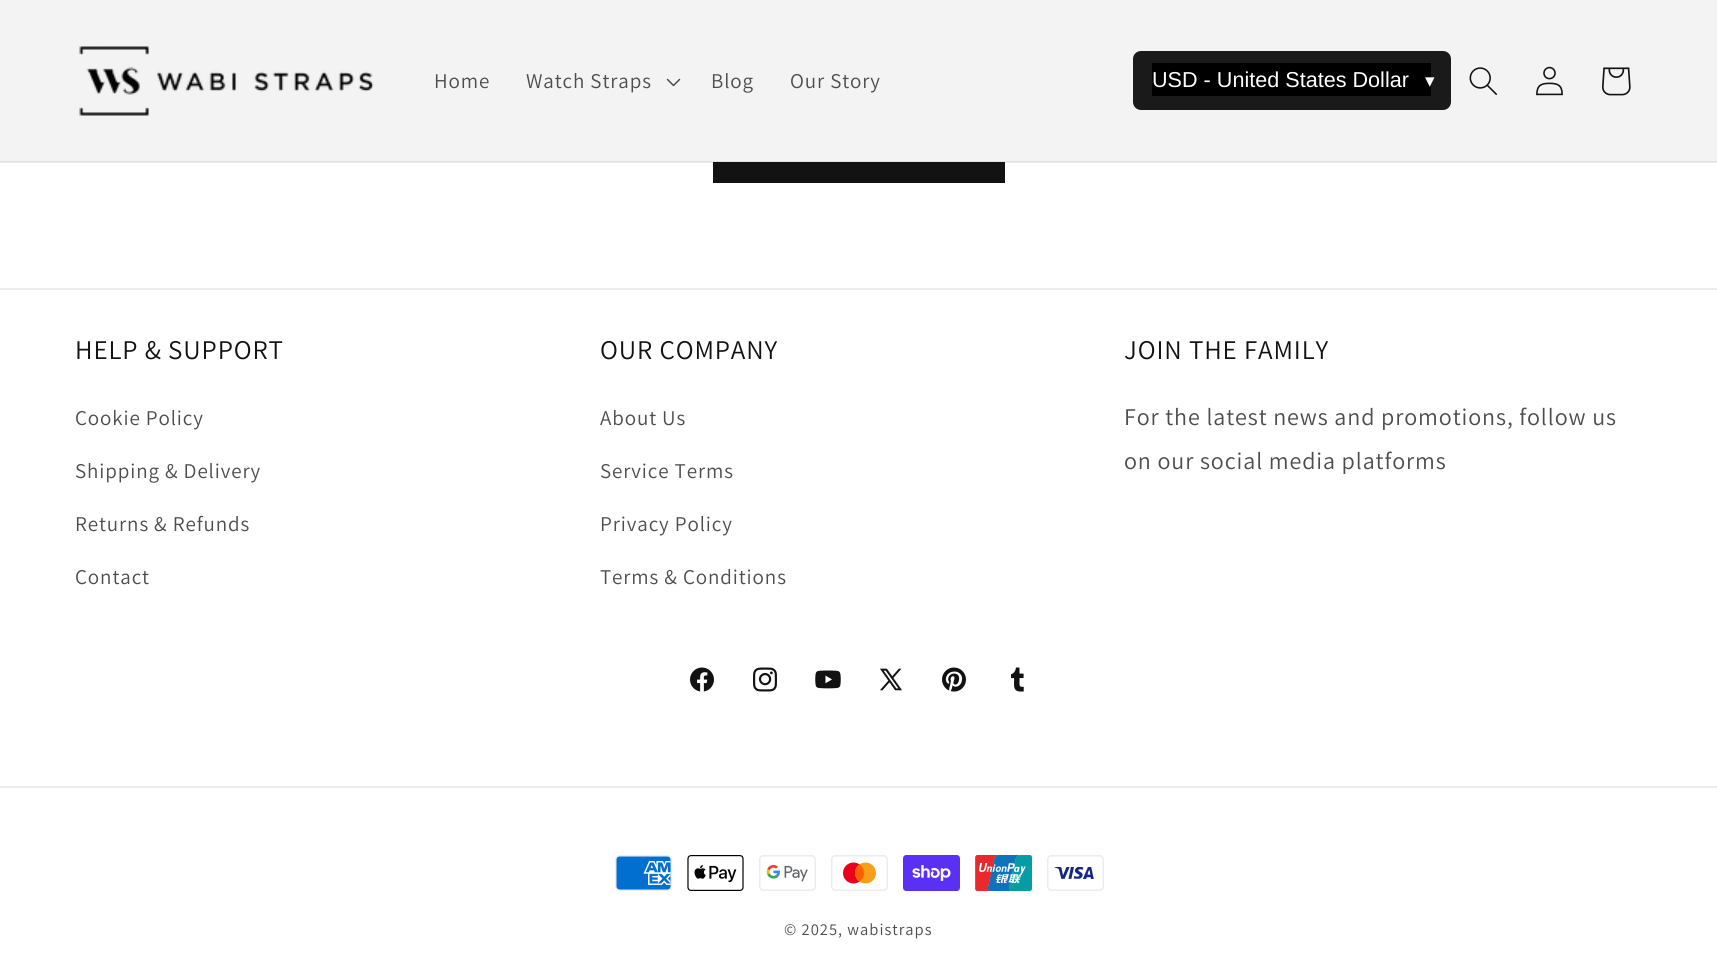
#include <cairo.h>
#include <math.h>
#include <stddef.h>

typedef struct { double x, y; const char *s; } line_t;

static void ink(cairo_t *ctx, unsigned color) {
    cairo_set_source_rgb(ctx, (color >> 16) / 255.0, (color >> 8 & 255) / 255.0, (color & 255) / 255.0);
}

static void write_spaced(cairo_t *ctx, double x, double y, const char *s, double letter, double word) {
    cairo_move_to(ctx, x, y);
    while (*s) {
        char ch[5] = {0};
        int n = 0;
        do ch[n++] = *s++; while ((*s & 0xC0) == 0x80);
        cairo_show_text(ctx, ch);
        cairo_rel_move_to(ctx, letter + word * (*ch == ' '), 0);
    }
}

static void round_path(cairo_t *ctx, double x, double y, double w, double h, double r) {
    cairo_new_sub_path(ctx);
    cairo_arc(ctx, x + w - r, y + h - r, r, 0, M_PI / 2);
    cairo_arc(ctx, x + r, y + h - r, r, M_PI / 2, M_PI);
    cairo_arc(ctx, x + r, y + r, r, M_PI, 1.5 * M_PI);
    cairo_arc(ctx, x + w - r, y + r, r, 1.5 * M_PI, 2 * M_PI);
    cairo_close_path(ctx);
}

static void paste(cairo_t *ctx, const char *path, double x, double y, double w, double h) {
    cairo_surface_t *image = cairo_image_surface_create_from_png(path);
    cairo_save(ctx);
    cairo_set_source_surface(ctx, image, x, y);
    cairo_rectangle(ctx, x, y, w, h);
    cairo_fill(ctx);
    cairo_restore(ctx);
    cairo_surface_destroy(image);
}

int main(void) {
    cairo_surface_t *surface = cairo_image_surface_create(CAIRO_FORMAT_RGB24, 1717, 963);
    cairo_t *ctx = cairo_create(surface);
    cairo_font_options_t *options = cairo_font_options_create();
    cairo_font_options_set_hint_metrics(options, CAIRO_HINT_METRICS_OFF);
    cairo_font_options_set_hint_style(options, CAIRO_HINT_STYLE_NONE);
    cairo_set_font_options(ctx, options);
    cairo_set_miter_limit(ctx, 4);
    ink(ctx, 0xFFFFFF);
    cairo_paint(ctx);
    ink(ctx, 0xF3F3F3);
    cairo_rectangle(ctx, 0, 0, 1717, 162);
    cairo_fill(ctx);
    ink(ctx, 0x121212);
    cairo_rectangle(ctx, 713, 162, 292, 21);
    cairo_fill(ctx);
    cairo_set_source_rgba(ctx, 0.071, 0.071, 0.071, 0.08);
    cairo_rectangle(ctx, 0, 161, 1717, 2);
    cairo_fill(ctx);
    paste(ctx, "media/1.png", 79, 46, 295, 70);
    cairo_select_font_face(ctx, "Assistant", CAIRO_FONT_SLANT_NORMAL, CAIRO_FONT_WEIGHT_NORMAL);
    cairo_set_font_size(ctx, 21);
    ink(ctx, 0x4D4D4D);
    write_spaced(ctx, 434, 88, "Home", 0.9, 0);
    write_spaced(ctx, 526, 88, "Watch Straps", 0.9, 0);
    paste(ctx, "media/2.png", 666, 78, 15, 9);
    write_spaced(ctx, 711, 88, "Blog", 0.9, 0);
    write_spaced(ctx, 790, 88, "Our Story", 0.9, 0);
    ink(ctx, 0x1A1A1A);
    round_path(ctx, 1133, 51, 318, 59, 8);
    cairo_fill(ctx);
    ink(ctx, 0x000000);
    cairo_rectangle(ctx, 1152, 63, 279, 33);
    cairo_fill(ctx);
    cairo_select_font_face(ctx, "Liberation Sans", CAIRO_FONT_SLANT_NORMAL, CAIRO_FONT_WEIGHT_NORMAL);
    cairo_set_font_size(ctx, 21.6);
    ink(ctx, 0xFFFFFF);
    cairo_move_to(ctx, 1152, 87);
    cairo_show_text(ctx, "USD - United States Dollar");
    cairo_select_font_face(ctx, "DejaVu Sans", CAIRO_FONT_SLANT_NORMAL, CAIRO_FONT_WEIGHT_NORMAL);
    cairo_set_font_size(ctx, 19);
    write_spaced(ctx, 1425, 87, "▾", 0.9, 0);
    paste(ctx, "media/3.png", 1469, 67, 28, 28);
    paste(ctx, "media/4.png", 1536, 66, 27, 30);
    paste(ctx, "media/5.png", 1602, 67, 29, 29);
    ink(ctx, 0xECECEC);
    cairo_rectangle(ctx, 0, 288, 1717, 2);
    cairo_fill(ctx);
    cairo_select_font_face(ctx, "Assistant", CAIRO_FONT_SLANT_NORMAL, CAIRO_FONT_WEIGHT_NORMAL);
    cairo_set_font_size(ctx, 27);
    ink(ctx, 0x121212);
    write_spaced(ctx, 75, 359, "HELP & SUPPORT", 0.9, 0);
    cairo_set_font_size(ctx, 21);
    ink(ctx, 0x4D4D4D);
    {
        static const line_t items[] = {
            {75, 425, "Cookie Policy"},
            {75, 478, "Shipping & Delivery"},
            {75, 531, "Returns & Refunds"},
            {75, 584, "Contact"},
        };
        for (size_t i = 0; i < sizeof items / sizeof *items; i++) {
            write_spaced(ctx, items[i].x, items[i].y, items[i].s, 0.9, 0);
        }
    }
    cairo_set_font_size(ctx, 27);
    ink(ctx, 0x121212);
    write_spaced(ctx, 600, 359, "OUR COMPANY", 0.9, 0);
    cairo_set_font_size(ctx, 21);
    ink(ctx, 0x4D4D4D);
    {
        static const line_t items[] = {
            {600, 425, "About Us"},
            {600, 478, "Service Terms"},
            {600, 531, "Privacy Policy"},
            {600, 584, "Terms & Conditions"},
        };
        for (size_t i = 0; i < sizeof items / sizeof *items; i++) {
            write_spaced(ctx, items[i].x, items[i].y, items[i].s, 0.9, 0);
        }
    }
    cairo_set_font_size(ctx, 27);
    ink(ctx, 0x121212);
    write_spaced(ctx, 1124, 359, "JOIN THE FAMILY", 0.9, 0);
    cairo_set_font_size(ctx, 24);
    ink(ctx, 0x4D4D4D);
    write_spaced(ctx, 1124, 425, "For the latest news and promotions, follow us", 0.9, 0);
    write_spaced(ctx, 1124, 469, "on our social media platforms", 0.9, 0);
    paste(ctx, "media/6.png", 690, 667, 24, 25);
    paste(ctx, "media/7.png", 753, 667, 24, 25);
    paste(ctx, "media/8.png", 815, 670, 26, 19);
    paste(ctx, "media/9.png", 880, 668, 22, 23);
    paste(ctx, "media/10.png", 942, 667, 24, 25);
    paste(ctx, "media/11.png", 1011, 667, 13, 25);
    ink(ctx, 0xECECEC);
    cairo_rectangle(ctx, 0, 786, 1717, 2);
    cairo_fill(ctx);
    paste(ctx, "media/12.png", 615, 855, 57, 36);
    paste(ctx, "media/13.png", 687, 855, 57, 36);
    paste(ctx, "media/14.png", 759, 855, 57, 36);
    paste(ctx, "media/15.png", 831, 855, 57, 36);
    paste(ctx, "media/16.png", 903, 855, 57, 36);
    paste(ctx, "media/17.png", 975, 855, 57, 36);
    paste(ctx, "media/18.png", 1047, 855, 57, 36);
    cairo_set_font_size(ctx, 16.5);
    ink(ctx, 0x4D4D4D);
    write_spaced(ctx, 784, 935, "© 2025, wabistraps", 1, 0);
    cairo_surface_write_to_png(surface, "image.png");
    cairo_font_options_destroy(options);
    cairo_destroy(ctx);
    cairo_surface_destroy(surface);
    return 0;
}
